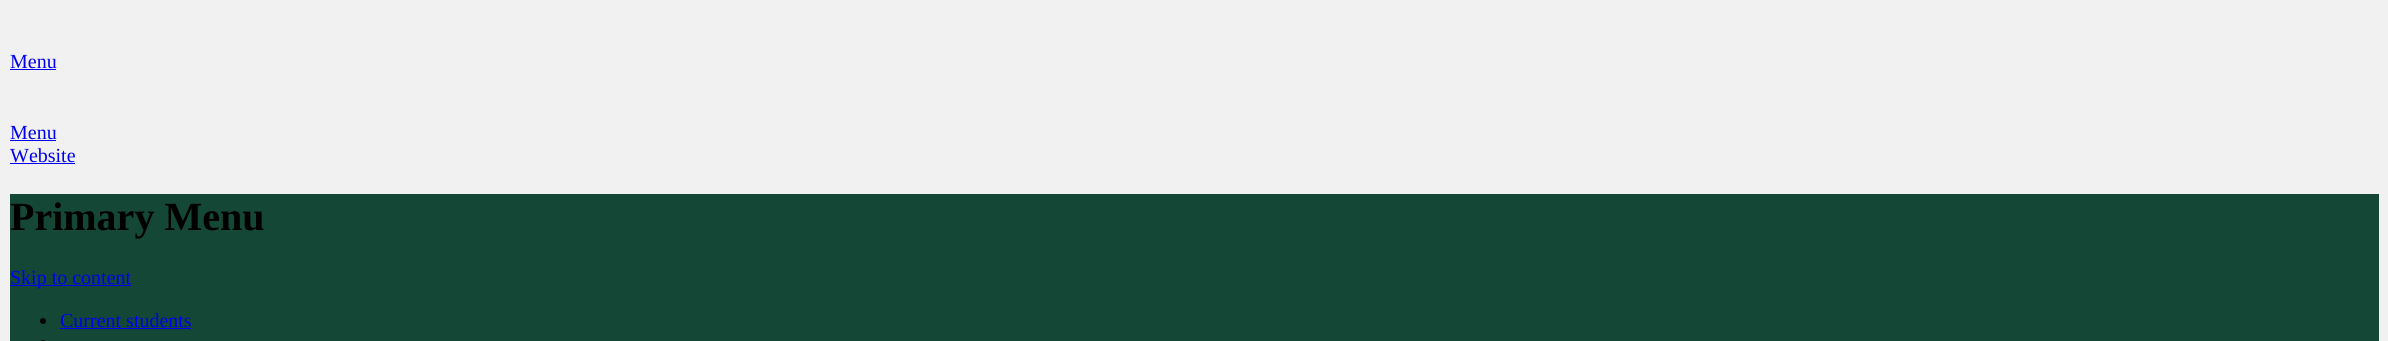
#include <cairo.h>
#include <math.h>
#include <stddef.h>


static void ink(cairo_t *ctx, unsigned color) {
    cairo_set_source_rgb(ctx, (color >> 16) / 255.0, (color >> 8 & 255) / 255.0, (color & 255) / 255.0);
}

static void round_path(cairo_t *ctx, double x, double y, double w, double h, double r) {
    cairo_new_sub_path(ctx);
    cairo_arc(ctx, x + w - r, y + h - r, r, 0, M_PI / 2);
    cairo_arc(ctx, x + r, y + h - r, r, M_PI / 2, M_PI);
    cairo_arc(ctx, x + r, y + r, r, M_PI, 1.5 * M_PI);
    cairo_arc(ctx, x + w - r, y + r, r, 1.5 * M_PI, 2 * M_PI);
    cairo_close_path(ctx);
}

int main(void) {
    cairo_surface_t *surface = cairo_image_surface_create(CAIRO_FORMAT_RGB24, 2388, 341);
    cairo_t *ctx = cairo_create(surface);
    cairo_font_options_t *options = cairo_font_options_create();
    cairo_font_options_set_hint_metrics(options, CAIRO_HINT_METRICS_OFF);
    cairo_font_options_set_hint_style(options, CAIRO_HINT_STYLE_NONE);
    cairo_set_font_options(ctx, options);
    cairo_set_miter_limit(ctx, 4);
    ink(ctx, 0xF1F1F1);
    cairo_paint(ctx);
    cairo_select_font_face(ctx, "Liberation Serif", CAIRO_FONT_SLANT_NORMAL, CAIRO_FONT_WEIGHT_NORMAL);
    cairo_set_font_size(ctx, 20);
    ink(ctx, 0x0000EE);
    cairo_move_to(ctx, 10, 68);
    cairo_show_text(ctx, "Menu");
    cairo_rectangle(ctx, 10, 69, 46, 1);
    cairo_fill(ctx);
    cairo_move_to(ctx, 10, 139);
    cairo_show_text(ctx, "Menu");
    cairo_rectangle(ctx, 10, 140, 46, 1);
    cairo_fill(ctx);
    cairo_move_to(ctx, 10, 162);
    cairo_show_text(ctx, "Website");
    cairo_rectangle(ctx, 10, 163, 65, 1);
    cairo_fill(ctx);
    ink(ctx, 0x144735);
    cairo_rectangle(ctx, 10, 194, 2369, 147);
    cairo_fill(ctx);
    cairo_select_font_face(ctx, "Liberation Serif", CAIRO_FONT_SLANT_NORMAL, CAIRO_FONT_WEIGHT_BOLD);
    cairo_set_font_size(ctx, 40);
    ink(ctx, 0x000000);
    cairo_move_to(ctx, 10, 230);
    cairo_show_text(ctx, "Primary Menu");
    ink(ctx, 0x0000EE);
    cairo_rectangle(ctx, 10, 285, 121, 1);
    cairo_fill(ctx);
    cairo_select_font_face(ctx, "Liberation Serif", CAIRO_FONT_SLANT_NORMAL, CAIRO_FONT_WEIGHT_NORMAL);
    cairo_set_font_size(ctx, 20);
    cairo_move_to(ctx, 10, 284);
    cairo_show_text(ctx, "Skip to content");
    ink(ctx, 0x000000);
    cairo_new_path(ctx);
    cairo_arc(ctx, 43, 321, 3, 0, 2 * M_PI);
    cairo_fill(ctx);
    ink(ctx, 0x0000EE);
    cairo_move_to(ctx, 60, 327);
    cairo_show_text(ctx, "Current students");
    cairo_rectangle(ctx, 60, 328, 131, 1);
    cairo_fill(ctx);
    ink(ctx, 0x000000);
    round_path(ctx, 40, 340, 6, 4, 3);
    cairo_fill(ctx);
    cairo_surface_write_to_png(surface, "image.png");
    cairo_font_options_destroy(options);
    cairo_destroy(ctx);
    cairo_surface_destroy(surface);
    return 0;
}
